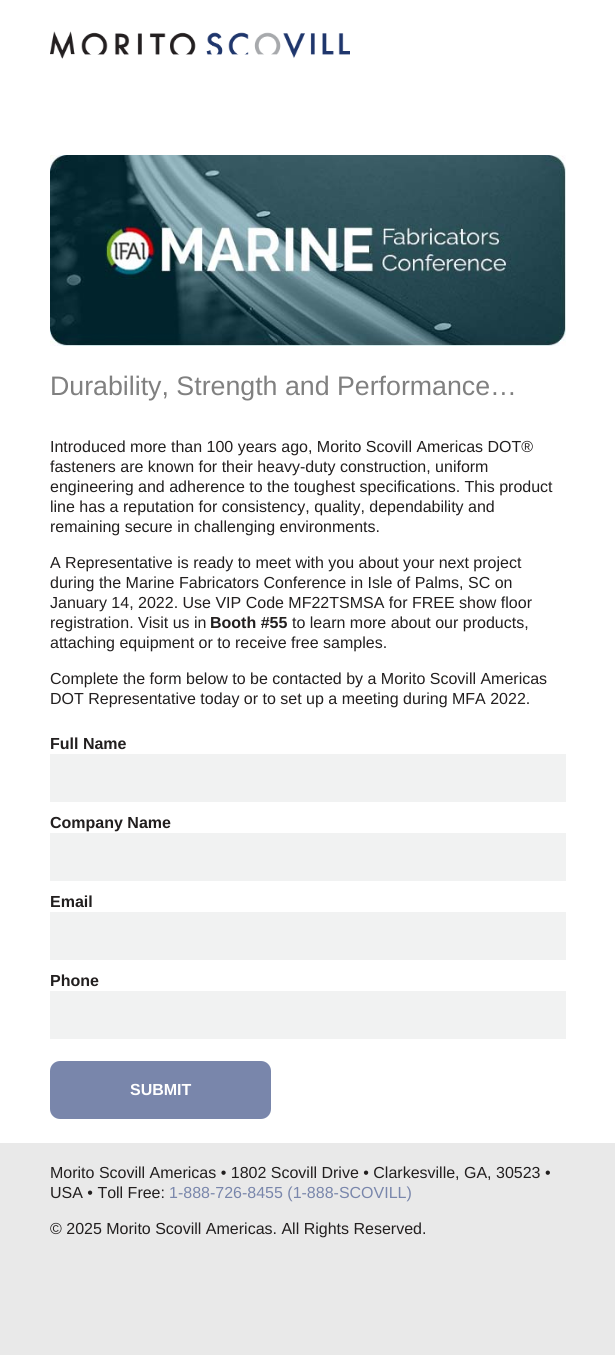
#include <cairo.h>
#include <math.h>
#include <stddef.h>

typedef struct { double x, y; const char *s; } line_t;

static void ink(cairo_t *ctx, unsigned color) {
    cairo_set_source_rgb(ctx, (color >> 16) / 255.0, (color >> 8 & 255) / 255.0, (color & 255) / 255.0);
}

static void round_path(cairo_t *ctx, double x, double y, double w, double h, double r) {
    cairo_new_sub_path(ctx);
    cairo_arc(ctx, x + w - r, y + h - r, r, 0, M_PI / 2);
    cairo_arc(ctx, x + r, y + h - r, r, M_PI / 2, M_PI);
    cairo_arc(ctx, x + r, y + r, r, M_PI, 1.5 * M_PI);
    cairo_arc(ctx, x + w - r, y + r, r, 1.5 * M_PI, 2 * M_PI);
    cairo_close_path(ctx);
}

static void paste(cairo_t *ctx, const char *path, double x, double y, double w, double h) {
    cairo_surface_t *image = cairo_image_surface_create_from_png(path);
    cairo_save(ctx);
    cairo_set_source_surface(ctx, image, x, y);
    cairo_rectangle(ctx, x, y, w, h);
    cairo_fill(ctx);
    cairo_restore(ctx);
    cairo_surface_destroy(image);
}

int main(void) {
    cairo_surface_t *surface = cairo_image_surface_create(CAIRO_FORMAT_RGB24, 615, 1355);
    cairo_t *ctx = cairo_create(surface);
    cairo_font_options_t *options = cairo_font_options_create();
    cairo_font_options_set_hint_metrics(options, CAIRO_HINT_METRICS_OFF);
    cairo_font_options_set_hint_style(options, CAIRO_HINT_STYLE_NONE);
    cairo_set_font_options(ctx, options);
    cairo_set_miter_limit(ctx, 4);
    ink(ctx, 0xFFFFFF);
    cairo_paint(ctx);
    paste(ctx, "media/1.png", 50, 31, 300, 28);
    paste(ctx, "media/2.png", 50, 155, 516, 191);
    cairo_select_font_face(ctx, "Liberation Sans", CAIRO_FONT_SLANT_NORMAL, CAIRO_FONT_WEIGHT_NORMAL);
    cairo_set_font_size(ctx, 26.75);
    ink(ctx, 0x808080);
    cairo_move_to(ctx, 50, 395);
    cairo_show_text(ctx, "Durability, Strength and Performance…");
    cairo_set_font_size(ctx, 16);
    ink(ctx, 0x221F1F);
    {
        static const line_t items[] = {
            {50, 452, "Introduced more than 100 years ago, Morito Scovill Americas DOT®"},
            {50, 472, "fasteners are known for their heavy-duty construction, uniform"},
            {50, 492, "engineering and adherence to the toughest specifications. This product"},
            {50, 512, "line has a reputation for consistency, quality, dependability and"},
            {50, 532, "remaining secure in challenging environments."},
            {50, 568, "A Representative is ready to meet with you about your next project"},
            {50, 588, "during the Marine Fabricators Conference in Isle of Palms, SC on"},
            {50, 608, "January 14, 2022. Use VIP Code MF22TSMSA for FREE show floor"},
            {50, 628, "registration. Visit us in"},
        };
        for (size_t i = 0; i < sizeof items / sizeof *items; i++) {
            cairo_move_to(ctx, items[i].x, items[i].y);
            cairo_show_text(ctx, items[i].s);
        }
    }
    cairo_select_font_face(ctx, "Liberation Sans", CAIRO_FONT_SLANT_NORMAL, CAIRO_FONT_WEIGHT_BOLD);
    cairo_move_to(ctx, 210, 628);
    cairo_show_text(ctx, "Booth #55");
    cairo_select_font_face(ctx, "Liberation Sans", CAIRO_FONT_SLANT_NORMAL, CAIRO_FONT_WEIGHT_NORMAL);
    {
        static const line_t items[] = {
            {292, 628, "to learn more about our products,"},
            {50, 648, "attaching equipment or to receive free samples."},
            {50, 684, "Complete the form below to be contacted by a Morito Scovill Americas"},
            {50, 704, "DOT Representative today or to set up a meeting during MFA 2022."},
        };
        for (size_t i = 0; i < sizeof items / sizeof *items; i++) {
            cairo_move_to(ctx, items[i].x, items[i].y);
            cairo_show_text(ctx, items[i].s);
        }
    }
    cairo_select_font_face(ctx, "Liberation Sans", CAIRO_FONT_SLANT_NORMAL, CAIRO_FONT_WEIGHT_BOLD);
    cairo_move_to(ctx, 50, 749);
    cairo_show_text(ctx, "Full Name");
    ink(ctx, 0xF1F2F2);
    cairo_rectangle(ctx, 50, 754, 516, 48);
    cairo_fill(ctx);
    ink(ctx, 0x221F1F);
    cairo_move_to(ctx, 50, 828);
    cairo_show_text(ctx, "Company Name");
    ink(ctx, 0xF1F2F2);
    cairo_rectangle(ctx, 50, 833, 516, 48);
    cairo_fill(ctx);
    ink(ctx, 0x221F1F);
    cairo_move_to(ctx, 50, 907);
    cairo_show_text(ctx, "Email");
    ink(ctx, 0xF1F2F2);
    cairo_rectangle(ctx, 50, 912, 516, 48);
    cairo_fill(ctx);
    ink(ctx, 0x221F1F);
    cairo_move_to(ctx, 50, 986);
    cairo_show_text(ctx, "Phone");
    ink(ctx, 0xF1F2F2);
    cairo_rectangle(ctx, 50, 991, 516, 48);
    cairo_fill(ctx);
    ink(ctx, 0x7986AB);
    round_path(ctx, 52.5, 1063.5, 216, 53, 7.5);
    cairo_fill_preserve(ctx);
    cairo_set_line_width(ctx, 5);
    cairo_stroke(ctx);
    ink(ctx, 0xFFFFFF);
    cairo_move_to(ctx, 130, 1095);
    cairo_show_text(ctx, "SUBMIT");
    ink(ctx, 0xE9E9E9);
    cairo_rectangle(ctx, 0, 1143, 615, 212);
    cairo_fill(ctx);
    cairo_select_font_face(ctx, "Liberation Sans", CAIRO_FONT_SLANT_NORMAL, CAIRO_FONT_WEIGHT_NORMAL);
    ink(ctx, 0x221F1F);
    cairo_move_to(ctx, 50, 1178);
    cairo_show_text(ctx, "Morito Scovill Americas • 1802 Scovill Drive • Clarkesville, GA, 30523 •");
    cairo_move_to(ctx, 50, 1198);
    cairo_show_text(ctx, "USA • Toll Free:");
    ink(ctx, 0x7986AB);
    cairo_move_to(ctx, 169, 1198);
    cairo_show_text(ctx, "1-888-726-8455 (1-888-SCOVILL)");
    ink(ctx, 0x221F1F);
    cairo_move_to(ctx, 50, 1234);
    cairo_show_text(ctx, "© 2025 Morito Scovill Americas. All Rights Reserved.");
    cairo_surface_write_to_png(surface, "image.png");
    cairo_font_options_destroy(options);
    cairo_destroy(ctx);
    cairo_surface_destroy(surface);
    return 0;
}
